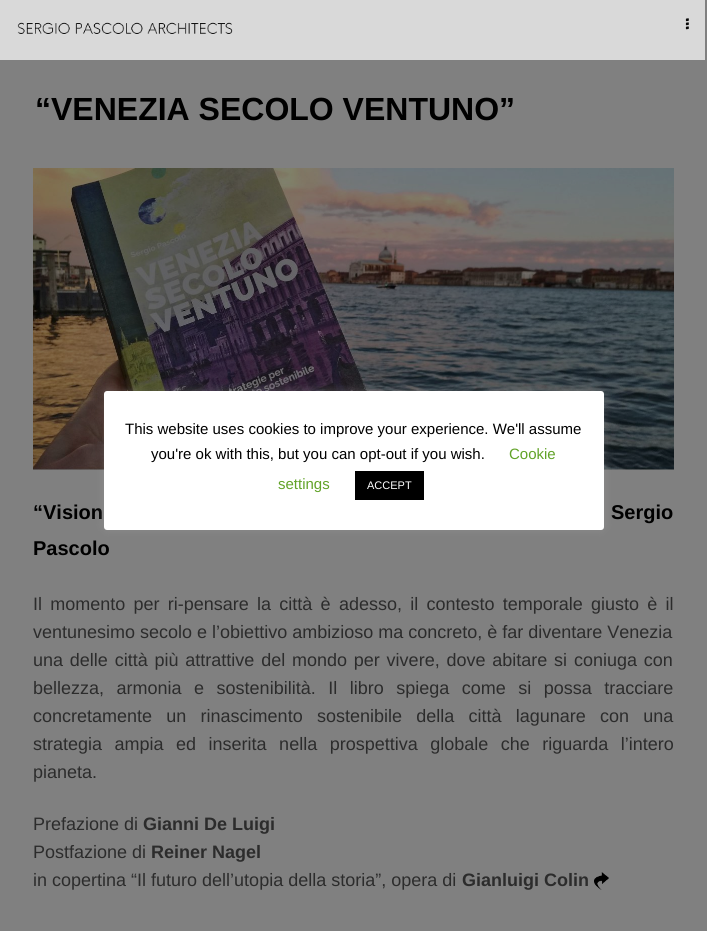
#include <cairo.h>
#include <math.h>
#include <stddef.h>


static void ink(cairo_t *ctx, unsigned color) {
    cairo_set_source_rgb(ctx, (color >> 16) / 255.0, (color >> 8 & 255) / 255.0, (color & 255) / 255.0);
}

static void write_spaced(cairo_t *ctx, double x, double y, const char *s, double letter, double word) {
    cairo_move_to(ctx, x, y);
    while (*s) {
        char ch[5] = {0};
        int n = 0;
        do ch[n++] = *s++; while ((*s & 0xC0) == 0x80);
        cairo_show_text(ctx, ch);
        cairo_rel_move_to(ctx, letter + word * (*ch == ' '), 0);
    }
}

static void round_path(cairo_t *ctx, double x, double y, double w, double h, double r) {
    cairo_new_sub_path(ctx);
    cairo_arc(ctx, x + w - r, y + h - r, r, 0, M_PI / 2);
    cairo_arc(ctx, x + r, y + h - r, r, M_PI / 2, M_PI);
    cairo_arc(ctx, x + r, y + r, r, M_PI, 1.5 * M_PI);
    cairo_arc(ctx, x + w - r, y + r, r, 1.5 * M_PI, 2 * M_PI);
    cairo_close_path(ctx);
}

static void blur_box(cairo_t *ctx, double x, double y, double w, double h, double r, double blur, double alpha) {
    cairo_push_group_with_content(ctx, CAIRO_CONTENT_ALPHA);
    cairo_set_operator(ctx, CAIRO_OPERATOR_SOURCE);
    for (int i = 15; i >= -15 && fmin(w, h) + blur * i / 3 > 0; i -= 2) {
        double e = blur * i / 6;
        cairo_set_source_rgba(ctx, 0, 0, 0, alpha * erfc((i - 1) / 8.5) / 2);
        round_path(ctx, x - e, y - e, w + 2 * e, h + 2 * e, fmax(0, fmin(r + e + blur * .6, fmin(w, h) / 2 + e)));
        cairo_fill(ctx);
    }
    cairo_pattern_t *soft = cairo_pop_group(ctx);
    cairo_mask(ctx, soft);
    cairo_pattern_destroy(soft);
}

static void paste(cairo_t *ctx, const char *path, double x, double y, double w, double h) {
    cairo_surface_t *image = cairo_image_surface_create_from_png(path);
    cairo_save(ctx);
    cairo_set_source_surface(ctx, image, x, y);
    cairo_rectangle(ctx, x, y, w, h);
    cairo_fill(ctx);
    cairo_restore(ctx);
    cairo_surface_destroy(image);
}

int main(void) {
    cairo_surface_t *surface = cairo_image_surface_create(CAIRO_FORMAT_RGB24, 707, 931);
    cairo_t *ctx = cairo_create(surface);
    cairo_font_options_t *options = cairo_font_options_create();
    cairo_font_options_set_hint_metrics(options, CAIRO_HINT_METRICS_OFF);
    cairo_font_options_set_hint_style(options, CAIRO_HINT_STYLE_NONE);
    cairo_set_font_options(ctx, options);
    cairo_set_miter_limit(ctx, 4);
    ink(ctx, 0x808080);
    cairo_paint(ctx);
    ink(ctx, 0xD9D9D9);
    cairo_rectangle(ctx, 0, 0, 705, 60);
    cairo_fill(ctx);
    paste(ctx, "media/1.png", 17, 22, 216, 13);
    cairo_select_font_face(ctx, "FreeSerif", CAIRO_FONT_SLANT_NORMAL, CAIRO_FONT_WEIGHT_BOLD);
    cairo_set_font_size(ctx, 18);
    ink(ctx, 0x0A0A0A);
    cairo_move_to(ctx, 685, 30);
    cairo_show_text(ctx, "፧");
    cairo_select_font_face(ctx, "Liberation Sans", CAIRO_FONT_SLANT_NORMAL, CAIRO_FONT_WEIGHT_BOLD);
    cairo_set_font_size(ctx, 32);
    ink(ctx, 0x000000);
    cairo_move_to(ctx, 35, 120);
    cairo_show_text(ctx, "“VENEZIA SECOLO VENTUNO”");
    paste(ctx, "media/2.png", 33, 168, 641, 302);
    cairo_set_font_size(ctx, 20);
    write_spaced(ctx, 33, 519, "“Vision", 0, 6);
    write_spaced(ctx, 611, 519, "Sergio", 0, 6);
    cairo_move_to(ctx, 33, 555);
    cairo_show_text(ctx, "Pascolo");
    cairo_select_font_face(ctx, "Liberation Sans", CAIRO_FONT_SLANT_NORMAL, CAIRO_FONT_WEIGHT_NORMAL);
    cairo_set_font_size(ctx, 18);
    ink(ctx, 0x2C2C2C);
    write_spaced(ctx, 33, 610, "Il momento per ri-pensare la città è adesso, il contesto temporale giusto è il", 0, 3.25);
    cairo_move_to(ctx, 33, 638);
    cairo_show_text(ctx, "ventunesimo secolo e l’obiettivo ambizioso ma concreto, è far diventare Venezia");
    write_spaced(ctx, 33, 666, "una delle città più attrattive del mondo per vivere, dove abitare si coniuga con", 0, 1.8);
    write_spaced(ctx, 33, 694, "bellezza, armonia e sostenibilità. Il libro spiega come si possa tracciare", 0, 7.5);
    write_spaced(ctx, 33, 722, "concretamente un rinascimento sostenibile della città lagunare con una", 0, 9.25);
    write_spaced(ctx, 33, 750, "strategia ampia ed inserita nella prospettiva globale che riguarda l’intero", 0, 7.5);
    cairo_move_to(ctx, 33, 778);
    cairo_show_text(ctx, "pianeta.");
    cairo_move_to(ctx, 33, 830);
    cairo_show_text(ctx, "Prefazione di");
    cairo_select_font_face(ctx, "Liberation Sans", CAIRO_FONT_SLANT_NORMAL, CAIRO_FONT_WEIGHT_BOLD);
    cairo_move_to(ctx, 143, 830);
    cairo_show_text(ctx, "Gianni De Luigi");
    cairo_select_font_face(ctx, "Liberation Sans", CAIRO_FONT_SLANT_NORMAL, CAIRO_FONT_WEIGHT_NORMAL);
    cairo_move_to(ctx, 33, 858);
    cairo_show_text(ctx, "Postfazione di");
    cairo_select_font_face(ctx, "Liberation Sans", CAIRO_FONT_SLANT_NORMAL, CAIRO_FONT_WEIGHT_BOLD);
    cairo_move_to(ctx, 151, 858);
    cairo_show_text(ctx, "Reiner Nagel");
    cairo_select_font_face(ctx, "Liberation Sans", CAIRO_FONT_SLANT_NORMAL, CAIRO_FONT_WEIGHT_NORMAL);
    cairo_move_to(ctx, 33, 886);
    cairo_show_text(ctx, "in copertina “Il futuro dell’utopia della storia”, opera di");
    cairo_select_font_face(ctx, "Liberation Sans", CAIRO_FONT_SLANT_NORMAL, CAIRO_FONT_WEIGHT_BOLD);
    cairo_move_to(ctx, 462, 886);
    cairo_show_text(ctx, "Gianluigi Colin");
    paste(ctx, "media/3.png", 594, 872, 15, 18);
    ink(ctx, 0xACABAB);
    blur_box(ctx, 104, 390, 500, 139, 3, 5, 0.3);
    ink(ctx, 0xFFFFFF);
    round_path(ctx, 104, 391, 500, 139, 3);
    cairo_fill(ctx);
    cairo_select_font_face(ctx, "Liberation Sans", CAIRO_FONT_SLANT_NORMAL, CAIRO_FONT_WEIGHT_NORMAL);
    cairo_set_font_size(ctx, 15);
    ink(ctx, 0x000000);
    cairo_move_to(ctx, 125, 434);
    cairo_show_text(ctx, "This website uses cookies to improve your experience. We'll assume");
    cairo_move_to(ctx, 151, 459);
    cairo_show_text(ctx, "you're ok with this, but you can opt-out if you wish.");
    ink(ctx, 0x62A329);
    cairo_move_to(ctx, 509, 459);
    cairo_show_text(ctx, "Cookie");
    cairo_move_to(ctx, 278, 489);
    cairo_show_text(ctx, "settings");
    ink(ctx, 0x000000);
    cairo_rectangle(ctx, 355, 471, 69, 29);
    cairo_fill(ctx);
    cairo_set_font_size(ctx, 11);
    ink(ctx, 0xFFFFFF);
    cairo_move_to(ctx, 367, 489);
    cairo_show_text(ctx, "ACCEPT");
    cairo_surface_write_to_png(surface, "image.png");
    cairo_font_options_destroy(options);
    cairo_destroy(ctx);
    cairo_surface_destroy(surface);
    return 0;
}
